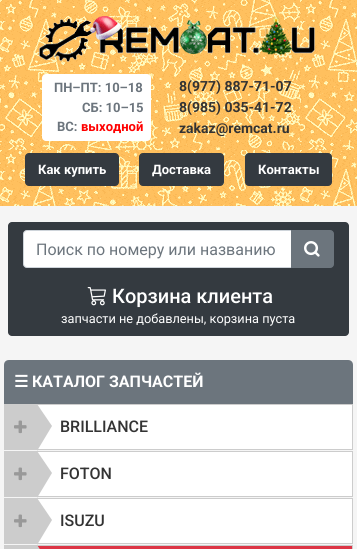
#include <cairo.h>
#include <math.h>
#include <stddef.h>

typedef struct { double x, y; const char *s; } line_t;

static void ink(cairo_t *ctx, unsigned color) {
    cairo_set_source_rgb(ctx, (color >> 16) / 255.0, (color >> 8 & 255) / 255.0, (color & 255) / 255.0);
}

static void round_path(cairo_t *ctx, double x, double y, double w, double h, double r) {
    cairo_new_sub_path(ctx);
    cairo_arc(ctx, x + w - r, y + h - r, r, 0, M_PI / 2);
    cairo_arc(ctx, x + r, y + h - r, r, M_PI / 2, M_PI);
    cairo_arc(ctx, x + r, y + r, r, M_PI, 1.5 * M_PI);
    cairo_arc(ctx, x + w - r, y + r, r, 1.5 * M_PI, 2 * M_PI);
    cairo_close_path(ctx);
}

static void paste(cairo_t *ctx, const char *path, double x, double y, double w, double h) {
    cairo_surface_t *image = cairo_image_surface_create_from_png(path);
    cairo_save(ctx);
    cairo_set_source_surface(ctx, image, x, y);
    cairo_rectangle(ctx, x, y, w, h);
    cairo_fill(ctx);
    cairo_restore(ctx);
    cairo_surface_destroy(image);
}

int main(void) {
    cairo_surface_t *surface = cairo_image_surface_create(CAIRO_FORMAT_RGB24, 357, 549);
    cairo_t *ctx = cairo_create(surface);
    cairo_font_options_t *options = cairo_font_options_create();
    cairo_font_options_set_hint_metrics(options, CAIRO_HINT_METRICS_OFF);
    cairo_font_options_set_hint_style(options, CAIRO_HINT_STYLE_NONE);
    cairo_set_font_options(ctx, options);
    cairo_set_miter_limit(ctx, 4);
    ink(ctx, 0xF5F5F5);
    cairo_paint(ctx);
    paste(ctx, "media/1.png", 0, 0, 357, 206);
    paste(ctx, "media/2.png", 39, 16, 276, 46);
    ink(ctx, 0xFFFFFF);
    round_path(ctx, 42, 74, 109, 67, 4);
    cairo_fill(ctx);
    cairo_select_font_face(ctx, "Roboto", CAIRO_FONT_SLANT_NORMAL, CAIRO_FONT_WEIGHT_BOLD);
    cairo_set_font_size(ctx, 13);
    ink(ctx, 0x6C757D);
    {
        static const line_t items[] = {
            {54, 92, "ПН–ПТ: 10–18"},
            {82, 112, "СБ: 10–15"},
            {57, 131, "ВС:"},
        };
        for (size_t i = 0; i < sizeof items / sizeof *items; i++) {
            cairo_move_to(ctx, items[i].x, items[i].y);
            cairo_show_text(ctx, items[i].s);
        }
    }
    ink(ctx, 0xFF0000);
    cairo_move_to(ctx, 81, 131);
    cairo_show_text(ctx, "выходной");
    cairo_set_font_size(ctx, 14);
    ink(ctx, 0x333333);
    {
        static const line_t items[] = {
            {179, 91, "8(977) 887-71-07"},
            {179, 112, "8(985) 035-41-72"},
            {179, 133, "zakaz@remcat.ru"},
        };
        for (size_t i = 0; i < sizeof items / sizeof *items; i++) {
            cairo_move_to(ctx, items[i].x, items[i].y);
            cairo_show_text(ctx, items[i].s);
        }
    }
    ink(ctx, 0x343A40);
    round_path(ctx, 25.5, 153.5, 93, 32, 3.5);
    cairo_fill_preserve(ctx);
    cairo_set_line_width(ctx, 1);
    cairo_stroke(ctx);
    cairo_set_font_size(ctx, 13);
    ink(ctx, 0xFFFFFF);
    cairo_move_to(ctx, 38, 174);
    cairo_show_text(ctx, "Как купить");
    ink(ctx, 0x343A40);
    round_path(ctx, 139.5, 153.5, 84, 32, 3.5);
    cairo_fill_preserve(ctx);
    cairo_stroke(ctx);
    ink(ctx, 0xFFFFFF);
    cairo_move_to(ctx, 152, 174);
    cairo_show_text(ctx, "Доставка");
    ink(ctx, 0x343A40);
    round_path(ctx, 245.5, 153.5, 86, 32, 3.5);
    cairo_fill_preserve(ctx);
    cairo_stroke(ctx);
    ink(ctx, 0xFFFFFF);
    cairo_move_to(ctx, 258, 174);
    cairo_show_text(ctx, "Контакты");
    ink(ctx, 0x343A40);
    round_path(ctx, 8, 222, 341, 114, 4);
    cairo_fill(ctx);
    ink(ctx, 0xFFFFFF);
    cairo_new_path(ctx);
    cairo_move_to(ctx, 27, 230.5);
    cairo_line_to(ctx, 291.5, 230.5);
    cairo_line_to(ctx, 291.5, 267.5);
    cairo_line_to(ctx, 27, 267.5);
    cairo_curve_to(ctx, 25, 267.5, 23.5, 266, 23.5, 264);
    cairo_line_to(ctx, 23.5, 234);
    cairo_curve_to(ctx, 23.5, 232, 25, 230.5, 27, 230.5);
    cairo_close_path(ctx);
    cairo_fill_preserve(ctx);
    ink(ctx, 0xCED4DA);
    cairo_stroke(ctx);
    cairo_select_font_face(ctx, "Roboto", CAIRO_FONT_SLANT_NORMAL, CAIRO_FONT_WEIGHT_NORMAL);
    cairo_set_font_size(ctx, 16);
    ink(ctx, 0x6C757D);
    cairo_move_to(ctx, 36, 255);
    cairo_show_text(ctx, "Поиск по номеру или названию");
    cairo_new_path(ctx);
    cairo_move_to(ctx, 291.5, 230.5);
    cairo_line_to(ctx, 330, 230.5);
    cairo_curve_to(ctx, 332, 230.5, 333.5, 232, 333.5, 234);
    cairo_line_to(ctx, 333.5, 264);
    cairo_curve_to(ctx, 333.5, 266, 332, 267.5, 330, 267.5);
    cairo_line_to(ctx, 291.5, 267.5);
    cairo_close_path(ctx);
    cairo_fill_preserve(ctx);
    cairo_stroke(ctx);
    paste(ctx, "media/3.png", 304, 241, 16, 16);
    paste(ctx, "media/4.png", 87, 287, 19, 19);
    cairo_select_font_face(ctx, "Roboto Medium", CAIRO_FONT_SLANT_NORMAL, CAIRO_FONT_WEIGHT_NORMAL);
    cairo_set_font_size(ctx, 20);
    ink(ctx, 0xFFFFFF);
    cairo_move_to(ctx, 112, 303);
    cairo_show_text(ctx, "Корзина клиента");
    cairo_select_font_face(ctx, "Roboto", CAIRO_FONT_SLANT_NORMAL, CAIRO_FONT_WEIGHT_NORMAL);
    cairo_set_font_size(ctx, 12.75);
    cairo_move_to(ctx, 61, 323);
    cairo_show_text(ctx, "запчасти не добавлены, корзина пуста");
    ink(ctx, 0x6C757D);
    cairo_new_path(ctx);
    cairo_move_to(ctx, 9, 360);
    cairo_line_to(ctx, 348, 360);
    cairo_curve_to(ctx, 351, 360, 353, 362, 353, 365);
    cairo_line_to(ctx, 353, 404);
    cairo_line_to(ctx, 4, 404);
    cairo_line_to(ctx, 4, 365);
    cairo_curve_to(ctx, 4, 362, 6, 360, 9, 360);
    cairo_close_path(ctx);
    cairo_fill(ctx);
    cairo_select_font_face(ctx, "DejaVu Sans", CAIRO_FONT_SLANT_NORMAL, CAIRO_FONT_WEIGHT_BOLD);
    cairo_set_font_size(ctx, 16);
    ink(ctx, 0xFFFFFF);
    cairo_move_to(ctx, 14, 387);
    cairo_show_text(ctx, "☰");
    cairo_select_font_face(ctx, "Roboto", CAIRO_FONT_SLANT_NORMAL, CAIRO_FONT_WEIGHT_BOLD);
    cairo_move_to(ctx, 32, 387);
    cairo_show_text(ctx, "КАТАЛОГ ЗАПЧАСТЕЙ");
    cairo_rectangle(ctx, 37, 405, 315, 44);
    cairo_fill(ctx);
    cairo_rectangle(ctx, 4.5, 404.5, 348, 45);
    ink(ctx, 0xCCCCCC);
    cairo_stroke(ctx);
    cairo_new_path(ctx);
    cairo_move_to(ctx, 37, 451);
    cairo_line_to(ctx, 37, 404);
    cairo_line_to(ctx, 52, 426);
    cairo_close_path(ctx);
    cairo_fill(ctx);
    cairo_rectangle(ctx, 5, 405, 32, 44);
    cairo_fill(ctx);
    paste(ctx, "media/5.png", 14, 420, 13, 14);
    cairo_select_font_face(ctx, "Roboto Medium", CAIRO_FONT_SLANT_NORMAL, CAIRO_FONT_WEIGHT_NORMAL);
    ink(ctx, 0x333333);
    cairo_move_to(ctx, 60, 432);
    cairo_show_text(ctx, "BRILLIANCE");
    ink(ctx, 0xFFFFFF);
    cairo_rectangle(ctx, 37, 452, 315, 44);
    cairo_fill(ctx);
    cairo_rectangle(ctx, 4.5, 451.5, 348, 45);
    ink(ctx, 0xCCCCCC);
    cairo_stroke(ctx);
    cairo_new_path(ctx);
    cairo_move_to(ctx, 37, 498);
    cairo_line_to(ctx, 37, 451);
    cairo_line_to(ctx, 52, 473);
    cairo_close_path(ctx);
    cairo_fill(ctx);
    cairo_rectangle(ctx, 5, 452, 32, 44);
    cairo_fill(ctx);
    paste(ctx, "media/5.png", 14, 467, 13, 14);
    ink(ctx, 0x333333);
    cairo_move_to(ctx, 60, 479);
    cairo_show_text(ctx, "FOTON");
    ink(ctx, 0xFFFFFF);
    cairo_rectangle(ctx, 37, 499, 315, 44);
    cairo_fill(ctx);
    cairo_rectangle(ctx, 4.5, 498.5, 348, 45);
    ink(ctx, 0xCCCCCC);
    cairo_stroke(ctx);
    cairo_new_path(ctx);
    cairo_move_to(ctx, 37, 545);
    cairo_line_to(ctx, 37, 498);
    cairo_line_to(ctx, 52, 520);
    cairo_close_path(ctx);
    cairo_fill(ctx);
    cairo_rectangle(ctx, 5, 499, 32, 44);
    cairo_fill(ctx);
    paste(ctx, "media/5.png", 14, 514, 13, 14);
    ink(ctx, 0x333333);
    cairo_move_to(ctx, 60, 526);
    cairo_show_text(ctx, "ISUZU");
    ink(ctx, 0xDC3546);
    cairo_rectangle(ctx, 37, 546, 316, 3);
    cairo_fill(ctx);
    cairo_rectangle(ctx, 4.5, 545.5, 348, 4);
    ink(ctx, 0xCCCCCC);
    cairo_stroke(ctx);
    cairo_rectangle(ctx, 4, 546, 33, 3);
    cairo_fill(ctx);
    cairo_new_path(ctx);
    cairo_move_to(ctx, 37, 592);
    cairo_line_to(ctx, 37, 545);
    cairo_line_to(ctx, 52, 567);
    cairo_close_path(ctx);
    cairo_fill(ctx);
    cairo_surface_write_to_png(surface, "image.png");
    cairo_font_options_destroy(options);
    cairo_destroy(ctx);
    cairo_surface_destroy(surface);
    return 0;
}
